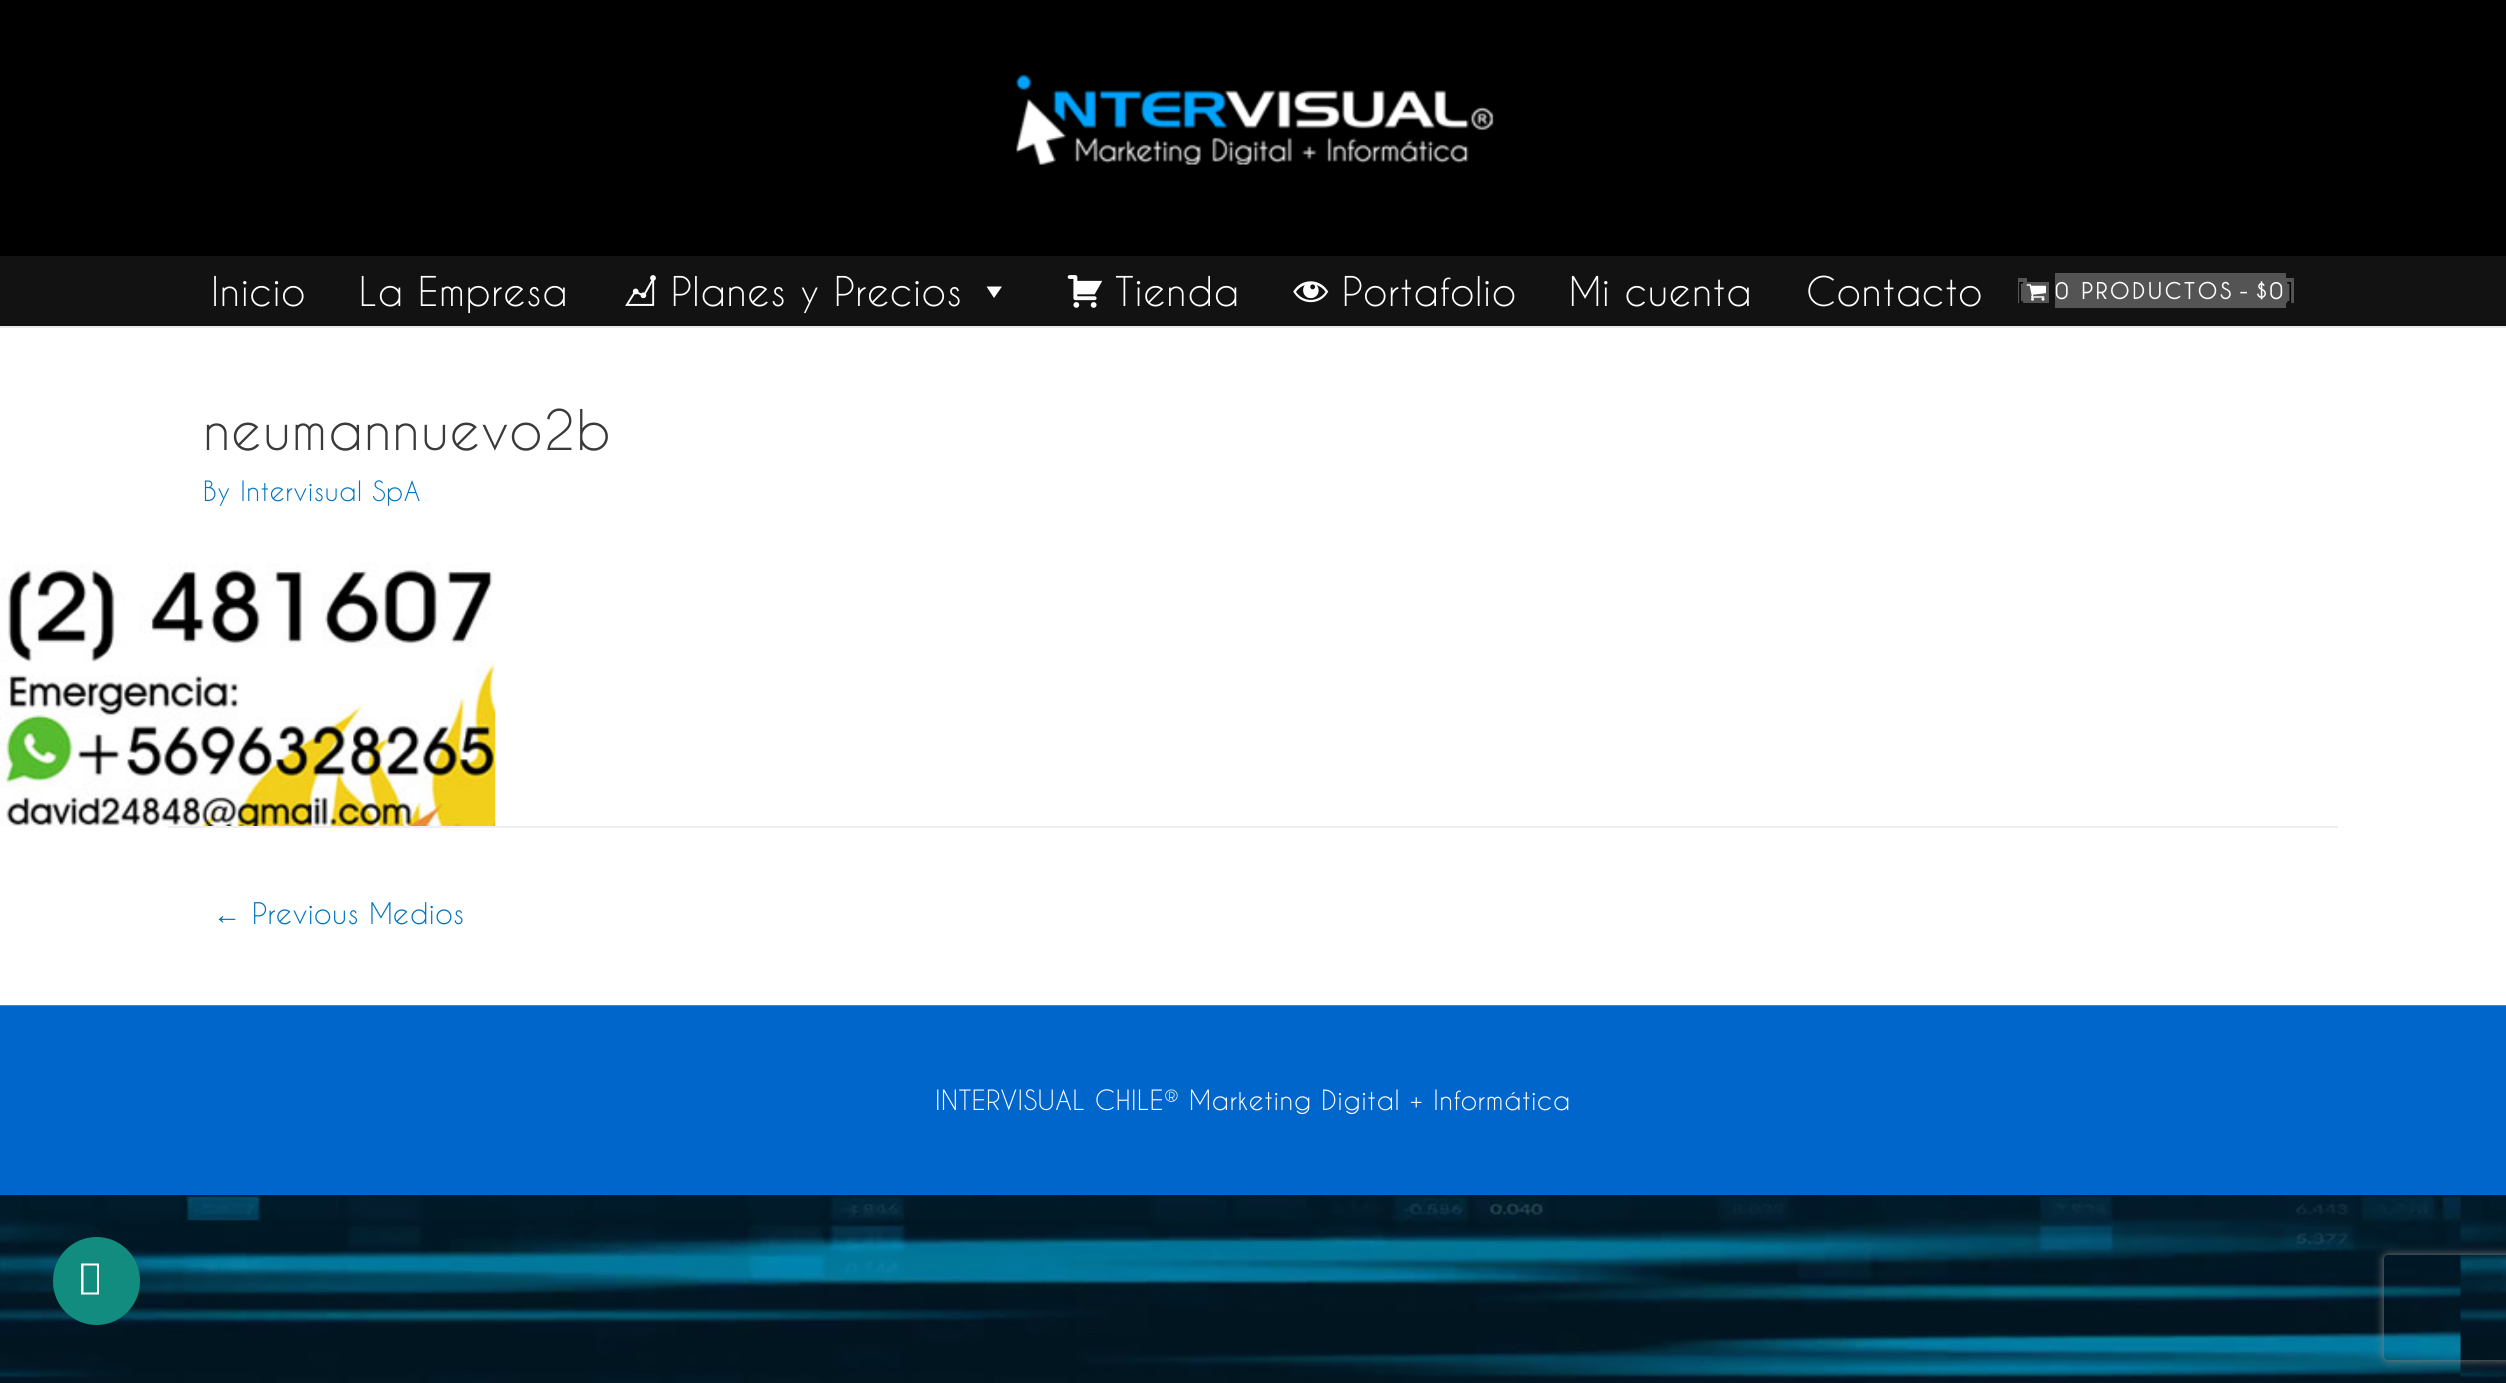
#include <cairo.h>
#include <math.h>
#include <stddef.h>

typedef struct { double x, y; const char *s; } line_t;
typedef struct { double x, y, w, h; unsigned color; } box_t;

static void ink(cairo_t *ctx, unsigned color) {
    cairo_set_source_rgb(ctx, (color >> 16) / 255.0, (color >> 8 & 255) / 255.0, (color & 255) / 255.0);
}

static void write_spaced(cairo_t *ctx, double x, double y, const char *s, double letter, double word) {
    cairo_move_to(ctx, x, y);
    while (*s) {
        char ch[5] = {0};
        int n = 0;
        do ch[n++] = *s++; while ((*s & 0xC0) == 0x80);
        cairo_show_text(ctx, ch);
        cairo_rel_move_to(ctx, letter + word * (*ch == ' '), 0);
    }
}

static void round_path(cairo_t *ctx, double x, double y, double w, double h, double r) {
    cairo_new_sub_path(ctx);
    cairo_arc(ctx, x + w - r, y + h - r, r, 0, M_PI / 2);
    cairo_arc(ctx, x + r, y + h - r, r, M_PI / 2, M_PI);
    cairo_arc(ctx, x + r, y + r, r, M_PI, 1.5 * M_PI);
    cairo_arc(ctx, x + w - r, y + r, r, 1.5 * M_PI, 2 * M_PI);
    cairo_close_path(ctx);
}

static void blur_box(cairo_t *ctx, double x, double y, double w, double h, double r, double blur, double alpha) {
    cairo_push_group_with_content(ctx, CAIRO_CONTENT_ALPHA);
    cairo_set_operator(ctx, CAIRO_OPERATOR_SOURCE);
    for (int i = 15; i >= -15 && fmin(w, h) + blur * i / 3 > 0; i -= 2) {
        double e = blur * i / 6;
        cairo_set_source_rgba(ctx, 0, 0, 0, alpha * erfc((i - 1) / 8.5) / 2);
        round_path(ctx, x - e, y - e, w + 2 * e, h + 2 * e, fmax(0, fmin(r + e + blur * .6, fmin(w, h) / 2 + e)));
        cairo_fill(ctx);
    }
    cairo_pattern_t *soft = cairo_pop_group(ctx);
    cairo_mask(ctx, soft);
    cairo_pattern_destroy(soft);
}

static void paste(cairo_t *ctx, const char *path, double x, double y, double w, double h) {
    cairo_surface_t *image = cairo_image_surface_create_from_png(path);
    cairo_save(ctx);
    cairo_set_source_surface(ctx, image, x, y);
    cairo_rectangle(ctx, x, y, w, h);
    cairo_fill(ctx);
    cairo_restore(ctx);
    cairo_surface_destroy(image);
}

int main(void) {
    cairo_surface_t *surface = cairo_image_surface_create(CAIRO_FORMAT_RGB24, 2506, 1383);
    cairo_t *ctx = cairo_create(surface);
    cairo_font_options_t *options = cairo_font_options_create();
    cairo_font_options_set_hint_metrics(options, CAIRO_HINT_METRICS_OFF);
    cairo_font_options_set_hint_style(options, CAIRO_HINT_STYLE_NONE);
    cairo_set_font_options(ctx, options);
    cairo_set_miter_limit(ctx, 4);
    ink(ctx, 0xFFFFFF);
    cairo_paint(ctx);
    paste(ctx, "media/1.png", 0, 1195, 2506, 188);
    ink(ctx, 0xEAEAEA);
    cairo_rectangle(ctx, 0, 326, 2506, 2);
    cairo_fill(ctx);
    ink(ctx, 0x000000);
    cairo_rectangle(ctx, 0, 0, 2506, 256);
    cairo_fill(ctx);
    paste(ctx, "media/2.png", 1016, 74, 478, 91);
    ink(ctx, 0x121212);
    cairo_rectangle(ctx, 0, 256, 2506, 70);
    cairo_fill(ctx);
    cairo_select_font_face(ctx, "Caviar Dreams", CAIRO_FONT_SLANT_NORMAL, CAIRO_FONT_WEIGHT_NORMAL);
    cairo_set_font_size(ctx, 38.5);
    ink(ctx, 0xFFFFFF);
    write_spaced(ctx, 211, 306, "Inicio", 0.75, 0);
    write_spaced(ctx, 359, 306, "La Empresa", 0.75, 0);
    paste(ctx, "media/3.png", 625, 275, 31, 31);
    write_spaced(ctx, 671, 306, "Planes y Precios", 0.75, 0);
    cairo_new_path(ctx);
    cairo_move_to(ctx, 1002, 286.5);
    cairo_line_to(ctx, 994, 298);
    cairo_line_to(ctx, 986.5, 286.5);
    cairo_close_path(ctx);
    cairo_fill(ctx);
    paste(ctx, "media/4.png", 1067, 275, 36, 33);
    write_spaced(ctx, 1115, 306, "Tienda", 0.75, 0);
    paste(ctx, "media/5.png", 1293, 281, 36, 22);
    {
        static const line_t items[] = {
            {1342, 306, "Portafolio"},
            {1569, 306, "Mi cuenta"},
            {1806, 306, "Contacto"},
        };
        for (size_t i = 0; i < sizeof items / sizeof *items; i++) {
            write_spaced(ctx, items[i].x, items[i].y, items[i].s, 0.75, 0);
        }
    }
    {
        static const box_t items[] = {
            {2018, 278, 9, 25, 0x545454},
            {2027, 282, 22, 21, 0x545454},
            {2055, 273, 231, 35, 0x545454},
            {2286, 278, 8, 25, 0x545454},
        };
        for (size_t i = 0; i < sizeof items / sizeof *items; i++) {
            ink(ctx, items[i].color);
            cairo_rectangle(ctx, items[i].x, items[i].y, items[i].w, items[i].h);
            cairo_fill(ctx);
        }
    }
    cairo_select_font_face(ctx, "Caviar Dreams", CAIRO_FONT_SLANT_NORMAL, CAIRO_FONT_WEIGHT_BOLD);
    cairo_set_font_size(ctx, 21);
    ink(ctx, 0x000000);
    write_spaced(ctx, 2018, 299, "[", 3.1, 0);
    paste(ctx, "media/6.png", 2026, 284, 20, 17);
    ink(ctx, 0xFFFFFF);
    {
        static const line_t items[] = {
            {2055, 299, "0 PRODUCTOS"},
            {2239, 299, "-"},
            {2256, 299, "$0"},
        };
        for (size_t i = 0; i < sizeof items / sizeof *items; i++) {
            write_spaced(ctx, items[i].x, items[i].y, items[i].s, 3.1, 0);
        }
    }
    ink(ctx, 0x000000);
    write_spaced(ctx, 2286, 299, "]", 3.1, 0);
    cairo_select_font_face(ctx, "Caviar Dreams", CAIRO_FONT_SLANT_NORMAL, CAIRO_FONT_WEIGHT_NORMAL);
    cairo_set_font_size(ctx, 52.5);
    ink(ctx, 0x3A3A3A);
    write_spaced(ctx, 203, 450, "neumannuevo2b", 1, 0);
    cairo_set_font_size(ctx, 26.25);
    ink(ctx, 0x0274BE);
    write_spaced(ctx, 203, 501, "By Intervisual SpA", 0.53, 0);
    paste(ctx, "media/7.png", 0, 563, 496, 263);
    ink(ctx, 0xEEEEEE);
    cairo_rectangle(ctx, 168, 826, 2170, 2);
    cairo_fill(ctx);
    cairo_select_font_face(ctx, "Liberation Serif", CAIRO_FONT_SLANT_NORMAL, CAIRO_FONT_WEIGHT_NORMAL);
    cairo_set_font_size(ctx, 28);
    ink(ctx, 0x0274BE);
    write_spaced(ctx, 213, 924, "←", 0.5, 0);
    cairo_select_font_face(ctx, "Caviar Dreams", CAIRO_FONT_SLANT_NORMAL, CAIRO_FONT_WEIGHT_NORMAL);
    write_spaced(ctx, 252, 924, "Previous Medios", 0.5, 0);
    ink(ctx, 0x7A7A7A);
    cairo_rectangle(ctx, 0, 1005, 2506, 1);
    cairo_fill(ctx);
    ink(ctx, 0x0066CC);
    cairo_rectangle(ctx, 0, 1006, 2506, 189);
    cairo_fill(ctx);
    cairo_set_font_size(ctx, 26.25);
    ink(ctx, 0xFFFFFF);
    write_spaced(ctx, 935, 1110, "INTERVISUAL CHILE® Marketing Digital + Informática", 0.53, 0);
    ink(ctx, 0x118C7E);
    round_path(ctx, 53, 1237, 87, 88, 43.5);
    cairo_fill(ctx);
    ink(ctx, 0xFFFFFF);
    cairo_new_path(ctx);
    cairo_move_to(ctx, 81, 1294.5);
    cairo_line_to(ctx, 81, 1263.5);
    cairo_line_to(ctx, 99, 1263.5);
    cairo_line_to(ctx, 99, 1294.5);
    cairo_close_path(ctx);
    cairo_move_to(ctx, 83.5, 1292.5);
    cairo_line_to(ctx, 97, 1292.5);
    cairo_line_to(ctx, 97, 1265.5);
    cairo_line_to(ctx, 83.5, 1265.5);
    cairo_close_path(ctx);
    cairo_fill(ctx);
    cairo_save(ctx);
    cairo_set_fill_rule(ctx, CAIRO_FILL_RULE_EVEN_ODD);
    cairo_new_path(ctx);
    cairo_move_to(ctx, 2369, 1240);
    cairo_line_to(ctx, 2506, 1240);
    cairo_line_to(ctx, 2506, 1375);
    cairo_line_to(ctx, 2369, 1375);
    cairo_close_path(ctx);
    cairo_move_to(ctx, 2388, 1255);
    cairo_line_to(ctx, 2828, 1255);
    cairo_curve_to(ctx, 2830, 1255, 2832, 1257, 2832, 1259);
    cairo_line_to(ctx, 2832, 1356);
    cairo_curve_to(ctx, 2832, 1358, 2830, 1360, 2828, 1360);
    cairo_line_to(ctx, 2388, 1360);
    cairo_curve_to(ctx, 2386, 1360, 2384, 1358, 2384, 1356);
    cairo_line_to(ctx, 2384, 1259);
    cairo_curve_to(ctx, 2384, 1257, 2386, 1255, 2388, 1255);
    cairo_close_path(ctx);
    cairo_clip(ctx);
    ink(ctx, 0x808080);
    blur_box(ctx, 2384, 1255, 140, 105, 4, 4.5, 1);
    cairo_restore(ctx);
    cairo_surface_write_to_png(surface, "image.png");
    cairo_font_options_destroy(options);
    cairo_destroy(ctx);
    cairo_surface_destroy(surface);
    return 0;
}
